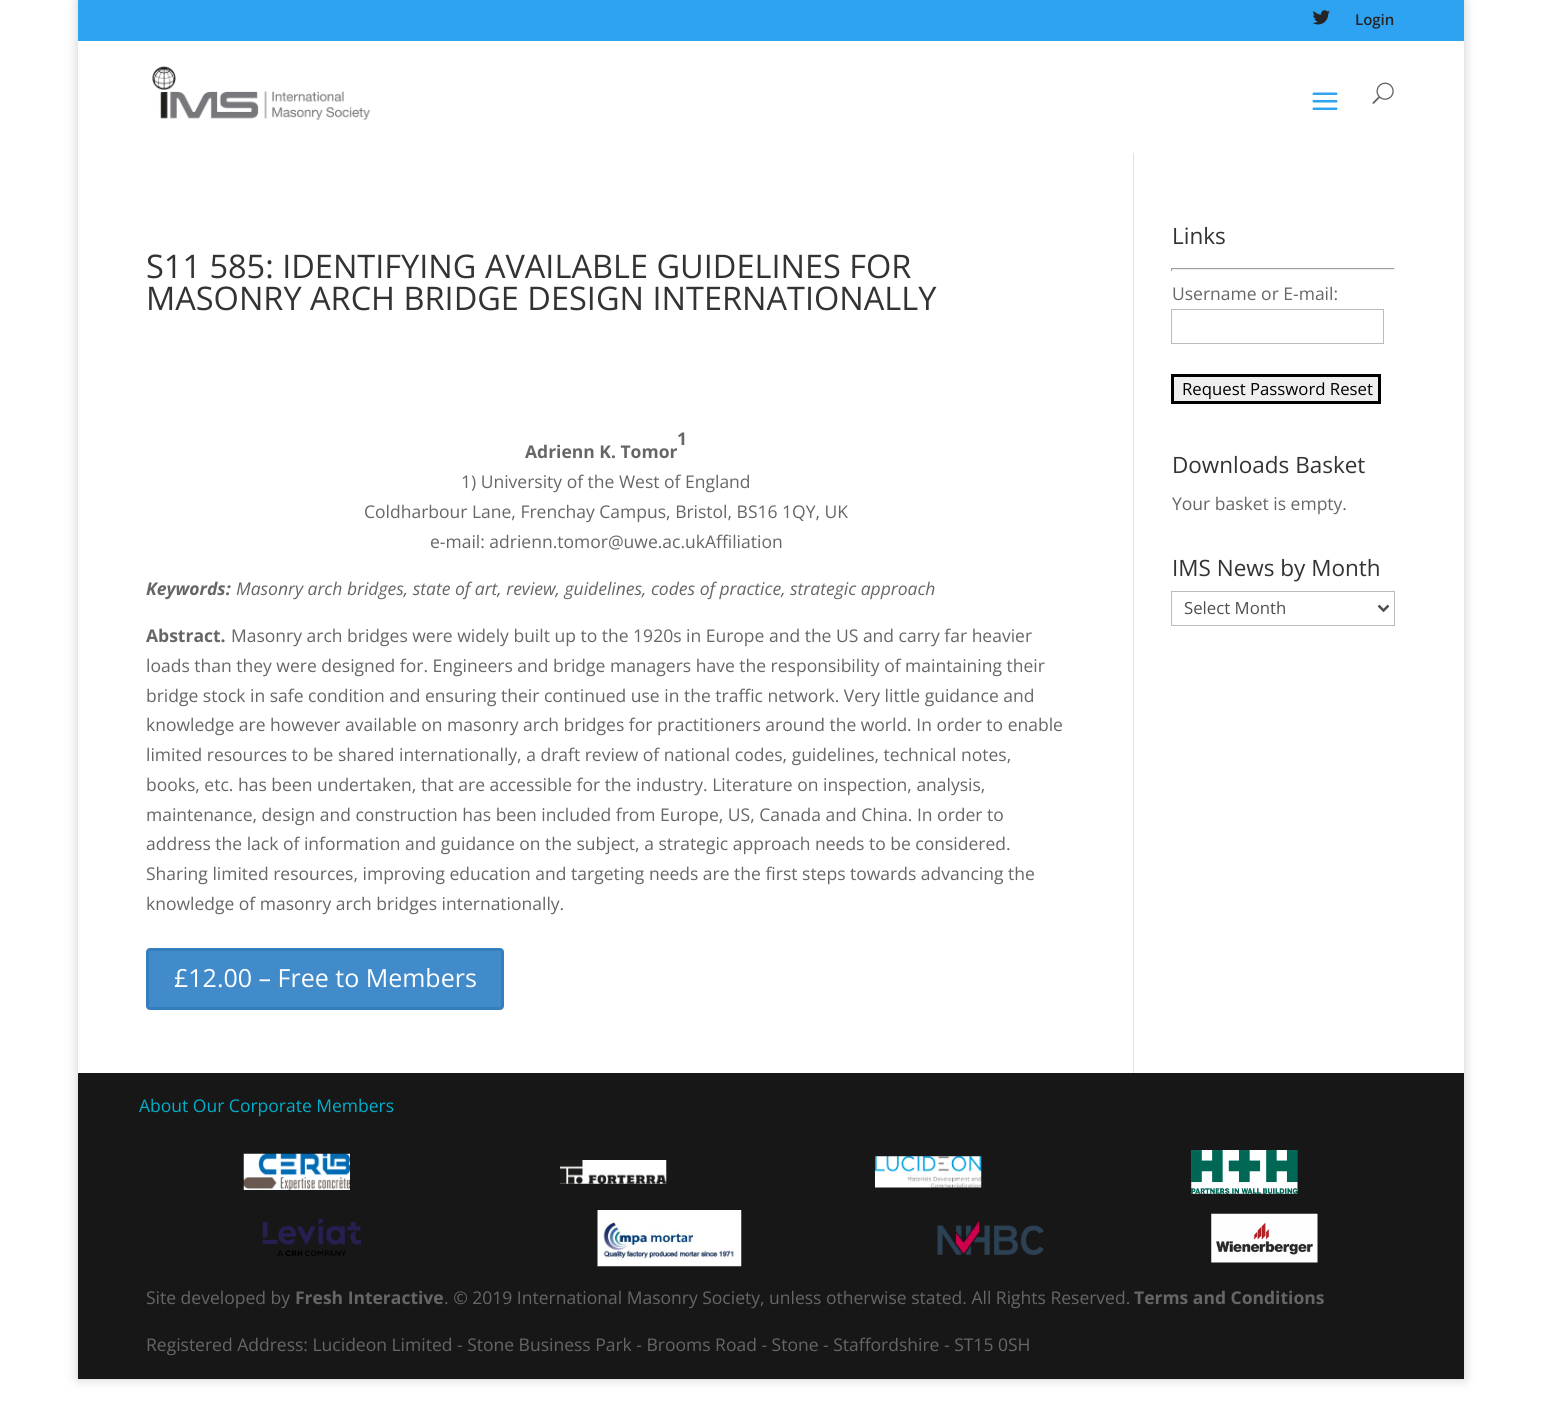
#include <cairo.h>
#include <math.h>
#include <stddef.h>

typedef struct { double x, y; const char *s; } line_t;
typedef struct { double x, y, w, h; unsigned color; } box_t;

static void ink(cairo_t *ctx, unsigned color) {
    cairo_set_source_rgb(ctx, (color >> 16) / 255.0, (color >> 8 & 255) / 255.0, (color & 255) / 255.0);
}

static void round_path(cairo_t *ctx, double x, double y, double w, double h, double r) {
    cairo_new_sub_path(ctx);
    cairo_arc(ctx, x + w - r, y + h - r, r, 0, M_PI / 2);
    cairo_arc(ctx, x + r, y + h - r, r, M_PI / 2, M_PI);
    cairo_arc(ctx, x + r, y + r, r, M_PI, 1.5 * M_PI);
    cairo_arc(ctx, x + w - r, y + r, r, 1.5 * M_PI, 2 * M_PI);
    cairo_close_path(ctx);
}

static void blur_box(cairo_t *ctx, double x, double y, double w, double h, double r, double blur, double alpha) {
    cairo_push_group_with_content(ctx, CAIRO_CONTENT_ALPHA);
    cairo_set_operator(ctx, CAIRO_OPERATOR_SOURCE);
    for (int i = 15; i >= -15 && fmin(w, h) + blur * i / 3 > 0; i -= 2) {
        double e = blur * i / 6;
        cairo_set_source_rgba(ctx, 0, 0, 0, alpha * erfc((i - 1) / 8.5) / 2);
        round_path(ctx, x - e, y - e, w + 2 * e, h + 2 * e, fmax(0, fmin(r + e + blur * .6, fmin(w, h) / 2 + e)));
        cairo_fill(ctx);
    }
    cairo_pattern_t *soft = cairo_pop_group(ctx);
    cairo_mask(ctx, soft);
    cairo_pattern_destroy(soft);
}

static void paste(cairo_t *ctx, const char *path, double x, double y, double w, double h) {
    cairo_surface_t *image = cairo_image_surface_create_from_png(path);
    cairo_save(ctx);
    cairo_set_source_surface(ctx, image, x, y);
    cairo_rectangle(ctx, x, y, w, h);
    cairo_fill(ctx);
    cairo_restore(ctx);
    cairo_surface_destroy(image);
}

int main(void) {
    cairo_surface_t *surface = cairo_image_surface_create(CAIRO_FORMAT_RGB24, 1541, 1413);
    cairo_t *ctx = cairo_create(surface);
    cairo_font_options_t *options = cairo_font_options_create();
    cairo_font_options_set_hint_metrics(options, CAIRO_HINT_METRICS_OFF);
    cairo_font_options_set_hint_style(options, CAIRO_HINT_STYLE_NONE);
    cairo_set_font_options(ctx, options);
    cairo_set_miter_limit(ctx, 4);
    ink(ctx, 0xFFFFFF);
    cairo_paint(ctx);
    ink(ctx, 0x000000);
    blur_box(ctx, 78, 0, 1386, 1379, 0, 6, 0.2);
    ink(ctx, 0x2EA3F2);
    cairo_rectangle(ctx, 78, 0, 1386, 41);
    cairo_fill(ctx);
    paste(ctx, "media/1.png", 1312, 10, 18, 15);
    cairo_select_font_face(ctx, "Open Sans SemiBold", CAIRO_FONT_SLANT_NORMAL, CAIRO_FONT_WEIGHT_NORMAL);
    cairo_set_font_size(ctx, 15);
    ink(ctx, 0x272425);
    cairo_move_to(ctx, 1355, 25);
    cairo_show_text(ctx, "Login");
    {
        static const box_t items[] = {
            {78, 153, 1386, 920, 0xFFFFFF},
            {1133, 151, 1, 922, 0xE2E2E2},
            {78, 41, 1386, 112, 0xFFFFFF},
        };
        for (size_t i = 0; i < sizeof items / sizeof *items; i++) {
            ink(ctx, items[i].color);
            cairo_rectangle(ctx, items[i].x, items[i].y, items[i].w, items[i].h);
            cairo_fill(ctx);
        }
    }
    paste(ctx, "media/2.png", 152, 66, 219, 54);
    paste(ctx, "media/3.png", 1312, 92, 26, 18);
    paste(ctx, "media/4.png", 1372, 82, 22, 22);
    cairo_select_font_face(ctx, "Open Sans", CAIRO_FONT_SLANT_NORMAL, CAIRO_FONT_WEIGHT_NORMAL);
    cairo_set_font_size(ctx, 32.5);
    ink(ctx, 0x333333);
    cairo_move_to(ctx, 146, 278);
    cairo_show_text(ctx, "S11 585: IDENTIFYING AVAILABLE GUIDELINES FOR");
    cairo_move_to(ctx, 146, 310);
    cairo_show_text(ctx, "MASONRY ARCH BRIDGE DESIGN INTERNATIONALLY");
    cairo_select_font_face(ctx, "Open Sans", CAIRO_FONT_SLANT_NORMAL, CAIRO_FONT_WEIGHT_BOLD);
    cairo_set_font_size(ctx, 17.5);
    ink(ctx, 0x666666);
    cairo_move_to(ctx, 677, 445);
    cairo_show_text(ctx, "1");
    cairo_move_to(ctx, 525, 458);
    cairo_show_text(ctx, "Adrienn K. Tomor");
    cairo_select_font_face(ctx, "Open Sans", CAIRO_FONT_SLANT_NORMAL, CAIRO_FONT_WEIGHT_NORMAL);
    {
        static const line_t items[] = {
            {461, 488, "1) University of the West of England"},
            {364, 518, "Coldharbour Lane, Frenchay Campus, Bristol, BS16 1QY, UK"},
            {430, 548, "e-mail: adrienn.tomor@uwe.ac.ukAffiliation"},
        };
        for (size_t i = 0; i < sizeof items / sizeof *items; i++) {
            cairo_move_to(ctx, items[i].x, items[i].y);
            cairo_show_text(ctx, items[i].s);
        }
    }
    cairo_select_font_face(ctx, "Open Sans", CAIRO_FONT_SLANT_ITALIC, CAIRO_FONT_WEIGHT_BOLD);
    cairo_move_to(ctx, 146, 595);
    cairo_show_text(ctx, "Keywords:");
    cairo_select_font_face(ctx, "Open Sans", CAIRO_FONT_SLANT_ITALIC, CAIRO_FONT_WEIGHT_NORMAL);
    cairo_move_to(ctx, 236, 595);
    cairo_show_text(ctx, "Masonry arch bridges, state of art, review, guidelines, codes of practice, strategic approach");
    cairo_select_font_face(ctx, "Open Sans", CAIRO_FONT_SLANT_NORMAL, CAIRO_FONT_WEIGHT_BOLD);
    cairo_move_to(ctx, 146, 642);
    cairo_show_text(ctx, "Abstract.");
    cairo_select_font_face(ctx, "Open Sans", CAIRO_FONT_SLANT_NORMAL, CAIRO_FONT_WEIGHT_NORMAL);
    {
        static const line_t items[] = {
            {231, 642, "Masonry arch bridges were widely built up to the 1920s in Europe and the US and carry far heavier"},
            {146, 672, "loads than they were designed for. Engineers and bridge managers have the responsibility of maintaining their"},
            {146, 702, "bridge stock in safe condition and ensuring their continued use in the traffic network. Very little guidance and"},
            {146, 731, "knowledge are however available on masonry arch bridges for practitioners around the world. In order to enable"},
            {146, 761, "limited resources to be shared internationally, a draft review of national codes, guidelines, technical notes,"},
            {146, 791, "books, etc. has been undertaken, that are accessible for the industry. Literature on inspection, analysis,"},
            {146, 821, "maintenance, design and construction has been included from Europe, US, Canada and China. In order to"},
            {146, 850, "address the lack of information and guidance on the subject, a strategic approach needs to be considered."},
            {146, 880, "Sharing limited resources, improving education and targeting needs are the first steps towards advancing the"},
            {146, 910, "knowledge of masonry arch bridges internationally."},
        };
        for (size_t i = 0; i < sizeof items / sizeof *items; i++) {
            cairo_move_to(ctx, items[i].x, items[i].y);
            cairo_show_text(ctx, items[i].s);
        }
    }
    ink(ctx, 0x428BCA);
    round_path(ctx, 147.5, 949.5, 355, 59, 2.5);
    cairo_fill_preserve(ctx);
    ink(ctx, 0x357EBD);
    cairo_set_line_width(ctx, 3);
    cairo_stroke(ctx);
    cairo_set_font_size(ctx, 25);
    ink(ctx, 0xFFFFFF);
    cairo_move_to(ctx, 174, 987);
    cairo_show_text(ctx, "£12.00 – Free to Members");
    cairo_set_font_size(ctx, 22.5);
    ink(ctx, 0x333333);
    cairo_move_to(ctx, 1172, 244);
    cairo_show_text(ctx, "Links");
    {
        static const box_t items[] = {
            {1171, 268, 224, 1, 0x9F9F9F},
            {1394, 268, 1, 3, 0xEEEEEE},
            {1171, 269, 224, 1, 0xEEEEEE},
            {1171, 268, 1, 3, 0x9F9F9F},
        };
        for (size_t i = 0; i < sizeof items / sizeof *items; i++) {
            ink(ctx, items[i].color);
            cairo_rectangle(ctx, items[i].x, items[i].y, items[i].w, items[i].h);
            cairo_fill(ctx);
        }
    }
    cairo_set_font_size(ctx, 17.5);
    ink(ctx, 0x666666);
    cairo_move_to(ctx, 1172, 300);
    cairo_show_text(ctx, "Username or E-mail:");
    cairo_rectangle(ctx, 1171.5, 309.5, 212, 34);
    ink(ctx, 0xBBBBBB);
    cairo_set_line_width(ctx, 1);
    cairo_stroke(ctx);
    ink(ctx, 0xEFEFEF);
    cairo_rectangle(ctx, 1172.5, 375.5, 207, 27);
    cairo_fill_preserve(ctx);
    ink(ctx, 0x000000);
    cairo_set_line_width(ctx, 3);
    cairo_stroke(ctx);
    cairo_set_font_size(ctx, 16.75);
    cairo_move_to(ctx, 1182, 395);
    cairo_show_text(ctx, "Request Password Reset");
    cairo_set_font_size(ctx, 22.5);
    ink(ctx, 0x333333);
    cairo_move_to(ctx, 1172, 473);
    cairo_show_text(ctx, "Downloads Basket");
    cairo_set_font_size(ctx, 17.5);
    ink(ctx, 0x666666);
    cairo_move_to(ctx, 1172, 510);
    cairo_show_text(ctx, "Your basket is empty.");
    cairo_set_font_size(ctx, 22.5);
    ink(ctx, 0x333333);
    cairo_move_to(ctx, 1172, 576);
    cairo_show_text(ctx, "IMS News by Month");
    cairo_rectangle(ctx, 1171.5, 591.5, 223, 34);
    ink(ctx, 0xBBBBBB);
    cairo_set_line_width(ctx, 1);
    cairo_stroke(ctx);
    cairo_new_path(ctx);
    cairo_move_to(ctx, 1378.5, 605.5);
    cairo_line_to(ctx, 1383.5, 610.5);
    cairo_line_to(ctx, 1388.5, 605.5);
    ink(ctx, 0x4E4E4E);
    cairo_set_line_width(ctx, 2.5);
    cairo_stroke(ctx);
    cairo_set_font_size(ctx, 16.75);
    cairo_move_to(ctx, 1184, 614);
    cairo_show_text(ctx, "Select Month");
    ink(ctx, 0x171717);
    cairo_rectangle(ctx, 78, 1073, 1386, 306);
    cairo_fill(ctx);
    cairo_set_font_size(ctx, 17.5);
    ink(ctx, 0x02AEC9);
    cairo_move_to(ctx, 139, 1112);
    cairo_show_text(ctx, "About Our Corporate Members");
    paste(ctx, "media/5.png", 243, 1153, 107, 37);
    paste(ctx, "media/6.png", 560, 1160, 107, 24);
    paste(ctx, "media/7.png", 875, 1156, 107, 32);
    paste(ctx, "media/8.png", 1191, 1150, 107, 44);
    paste(ctx, "media/9.png", 262, 1218, 100, 39);
    paste(ctx, "media/10.png", 597, 1210, 145, 57);
    paste(ctx, "media/11.png", 937, 1221, 107, 34);
    paste(ctx, "media/12.png", 1211, 1213, 107, 50);
    ink(ctx, 0x666666);
    cairo_move_to(ctx, 146, 1304);
    cairo_show_text(ctx, "Site developed by");
    cairo_select_font_face(ctx, "Open Sans", CAIRO_FONT_SLANT_NORMAL, CAIRO_FONT_WEIGHT_BOLD);
    cairo_move_to(ctx, 295, 1304);
    cairo_show_text(ctx, "Fresh Interactive");
    cairo_select_font_face(ctx, "Open Sans", CAIRO_FONT_SLANT_NORMAL, CAIRO_FONT_WEIGHT_NORMAL);
    cairo_move_to(ctx, 444, 1304);
    cairo_show_text(ctx, ". © 2019 International Masonry Society, unless otherwise stated. All Rights Reserved.");
    cairo_select_font_face(ctx, "Open Sans", CAIRO_FONT_SLANT_NORMAL, CAIRO_FONT_WEIGHT_BOLD);
    cairo_move_to(ctx, 1134, 1304);
    cairo_show_text(ctx, "Terms and Conditions");
    cairo_select_font_face(ctx, "Open Sans", CAIRO_FONT_SLANT_NORMAL, CAIRO_FONT_WEIGHT_NORMAL);
    cairo_move_to(ctx, 146, 1351);
    cairo_show_text(ctx, "Registered Address: Lucideon Limited - Stone Business Park - Brooms Road - Stone - Staffordshire - ST15 0SH");
    cairo_surface_write_to_png(surface, "image.png");
    cairo_font_options_destroy(options);
    cairo_destroy(ctx);
    cairo_surface_destroy(surface);
    return 0;
}
